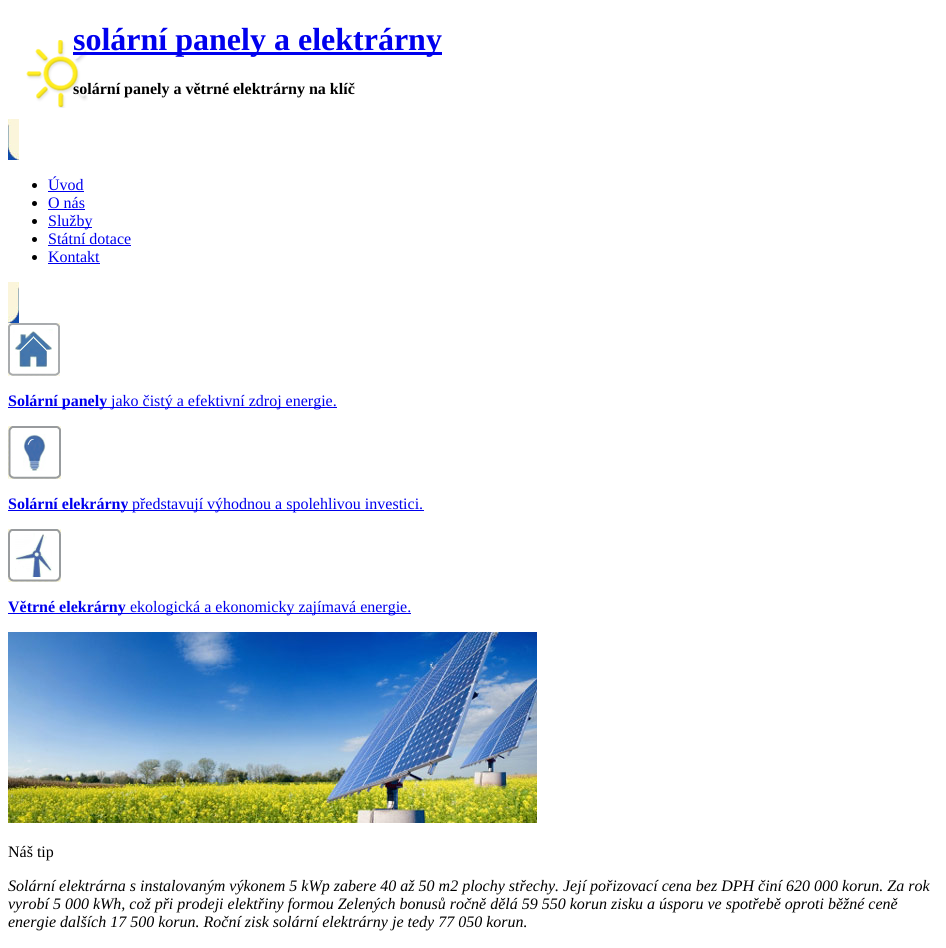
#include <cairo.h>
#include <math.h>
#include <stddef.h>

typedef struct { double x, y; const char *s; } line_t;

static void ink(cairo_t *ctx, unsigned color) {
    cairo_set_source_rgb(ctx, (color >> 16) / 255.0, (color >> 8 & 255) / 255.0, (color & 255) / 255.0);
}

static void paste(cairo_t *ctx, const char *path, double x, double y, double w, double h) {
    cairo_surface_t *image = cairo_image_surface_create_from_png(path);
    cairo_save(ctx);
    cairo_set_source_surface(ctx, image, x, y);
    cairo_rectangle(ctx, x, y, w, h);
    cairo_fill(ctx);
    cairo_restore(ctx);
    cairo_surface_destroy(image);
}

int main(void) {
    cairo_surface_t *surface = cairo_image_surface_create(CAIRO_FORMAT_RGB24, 946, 948);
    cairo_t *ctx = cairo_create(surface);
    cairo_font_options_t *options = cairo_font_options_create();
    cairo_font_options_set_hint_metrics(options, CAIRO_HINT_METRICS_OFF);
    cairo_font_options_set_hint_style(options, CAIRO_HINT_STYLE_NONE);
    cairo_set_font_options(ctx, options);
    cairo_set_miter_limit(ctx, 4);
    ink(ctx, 0xFFFFFF);
    cairo_paint(ctx);
    paste(ctx, "media/1.png", 26, 40, 62, 68);
    ink(ctx, 0x0000EE);
    cairo_rectangle(ctx, 73, 52, 369, 3);
    cairo_fill(ctx);
    cairo_select_font_face(ctx, "Liberation Serif", CAIRO_FONT_SLANT_NORMAL, CAIRO_FONT_WEIGHT_BOLD);
    cairo_set_font_size(ctx, 32);
    cairo_move_to(ctx, 73, 50);
    cairo_show_text(ctx, "solární panely a elektrárny");
    cairo_set_font_size(ctx, 16);
    ink(ctx, 0x000000);
    cairo_move_to(ctx, 73, 94);
    cairo_show_text(ctx, "solární panely a větrné elektrárny na klíč");
    paste(ctx, "media/2.png", 8, 119, 11, 41);
    cairo_arc(ctx, 34.5, 185.5, 2.5, 0, 2 * M_PI);
    cairo_fill(ctx);
    cairo_select_font_face(ctx, "Liberation Serif", CAIRO_FONT_SLANT_NORMAL, CAIRO_FONT_WEIGHT_NORMAL);
    ink(ctx, 0x0000EE);
    cairo_move_to(ctx, 48, 190);
    cairo_show_text(ctx, "Úvod");
    cairo_rectangle(ctx, 48, 191, 36, 1);
    cairo_fill(ctx);
    ink(ctx, 0x000000);
    cairo_arc(ctx, 34.5, 203.5, 2.5, 0, 2 * M_PI);
    cairo_fill(ctx);
    ink(ctx, 0x0000EE);
    cairo_move_to(ctx, 48, 208);
    cairo_show_text(ctx, "O nás");
    cairo_rectangle(ctx, 48, 209, 37, 1);
    cairo_fill(ctx);
    ink(ctx, 0x000000);
    cairo_arc(ctx, 34.5, 221.5, 2.5, 0, 2 * M_PI);
    cairo_fill(ctx);
    ink(ctx, 0x0000EE);
    cairo_rectangle(ctx, 48, 227, 44, 1);
    cairo_fill(ctx);
    cairo_move_to(ctx, 48, 226);
    cairo_show_text(ctx, "Služby");
    ink(ctx, 0x000000);
    cairo_new_path(ctx);
    cairo_arc(ctx, 34.5, 239.5, 2.5, 0, 2 * M_PI);
    cairo_fill(ctx);
    ink(ctx, 0x0000EE);
    cairo_move_to(ctx, 48, 244);
    cairo_show_text(ctx, "Státní dotace");
    cairo_rectangle(ctx, 48, 245, 83, 1);
    cairo_fill(ctx);
    ink(ctx, 0x000000);
    cairo_arc(ctx, 34.5, 257.5, 2.5, 0, 2 * M_PI);
    cairo_fill(ctx);
    ink(ctx, 0x0000EE);
    cairo_move_to(ctx, 48, 262);
    cairo_show_text(ctx, "Kontakt");
    cairo_rectangle(ctx, 48, 263, 52, 1);
    cairo_fill(ctx);
    paste(ctx, "media/3.png", 8, 282, 11, 41);
    paste(ctx, "media/4.png", 8, 323, 52, 53);
    cairo_rectangle(ctx, 8, 407, 329, 1);
    cairo_fill(ctx);
    cairo_select_font_face(ctx, "Liberation Serif", CAIRO_FONT_SLANT_NORMAL, CAIRO_FONT_WEIGHT_BOLD);
    cairo_move_to(ctx, 8, 406);
    cairo_show_text(ctx, "Solární panely");
    cairo_select_font_face(ctx, "Liberation Serif", CAIRO_FONT_SLANT_NORMAL, CAIRO_FONT_WEIGHT_NORMAL);
    cairo_move_to(ctx, 111, 406);
    cairo_show_text(ctx, "jako čistý a efektivní zdroj energie.");
    paste(ctx, "media/5.png", 8, 426, 53, 53);
    cairo_rectangle(ctx, 8, 510, 120, 1);
    cairo_fill(ctx);
    cairo_select_font_face(ctx, "Liberation Serif", CAIRO_FONT_SLANT_NORMAL, CAIRO_FONT_WEIGHT_BOLD);
    cairo_move_to(ctx, 8, 509);
    cairo_show_text(ctx, "Solární elekrárny");
    cairo_rectangle(ctx, 128, 510, 296, 1);
    cairo_fill(ctx);
    cairo_select_font_face(ctx, "Liberation Serif", CAIRO_FONT_SLANT_NORMAL, CAIRO_FONT_WEIGHT_NORMAL);
    cairo_move_to(ctx, 132, 509);
    cairo_show_text(ctx, "představují výhodnou a spolehlivou investici.");
    paste(ctx, "media/6.png", 8, 529, 53, 53);
    cairo_rectangle(ctx, 8, 613, 403, 1);
    cairo_fill(ctx);
    cairo_select_font_face(ctx, "Liberation Serif", CAIRO_FONT_SLANT_NORMAL, CAIRO_FONT_WEIGHT_BOLD);
    cairo_move_to(ctx, 8, 612);
    cairo_show_text(ctx, "Větrné elekrárny");
    cairo_select_font_face(ctx, "Liberation Serif", CAIRO_FONT_SLANT_NORMAL, CAIRO_FONT_WEIGHT_NORMAL);
    cairo_move_to(ctx, 130, 612);
    cairo_show_text(ctx, "ekologická a ekonomicky zajímavá energie.");
    paste(ctx, "media/7.png", 8, 632, 529, 191);
    ink(ctx, 0x000000);
    cairo_move_to(ctx, 8, 857);
    cairo_show_text(ctx, "Náš tip");
    cairo_select_font_face(ctx, "Liberation Serif", CAIRO_FONT_SLANT_ITALIC, CAIRO_FONT_WEIGHT_NORMAL);
    {
        static const line_t items[] = {
            {8, 891, "Solární elektrárna s instalovaným výkonem 5 kWp zabere 40 až 50 m2 plochy střechy. Její pořizovací cena bez DPH činí 620 000 korun. Za rok"},
            {8, 909, "vyrobí 5 000 kWh, což při prodeji elektřiny formou Zelených bonusů ročně dělá 59 550 korun zisku a úsporu ve spotřebě oproti běžné ceně"},
            {8, 927, "energie dalších 17 500 korun. Roční zisk solární elektrárny je tedy 77 050 korun."},
        };
        for (size_t i = 0; i < sizeof items / sizeof *items; i++) {
            cairo_move_to(ctx, items[i].x, items[i].y);
            cairo_show_text(ctx, items[i].s);
        }
    }
    cairo_surface_write_to_png(surface, "image.png");
    cairo_font_options_destroy(options);
    cairo_destroy(ctx);
    cairo_surface_destroy(surface);
    return 0;
}
